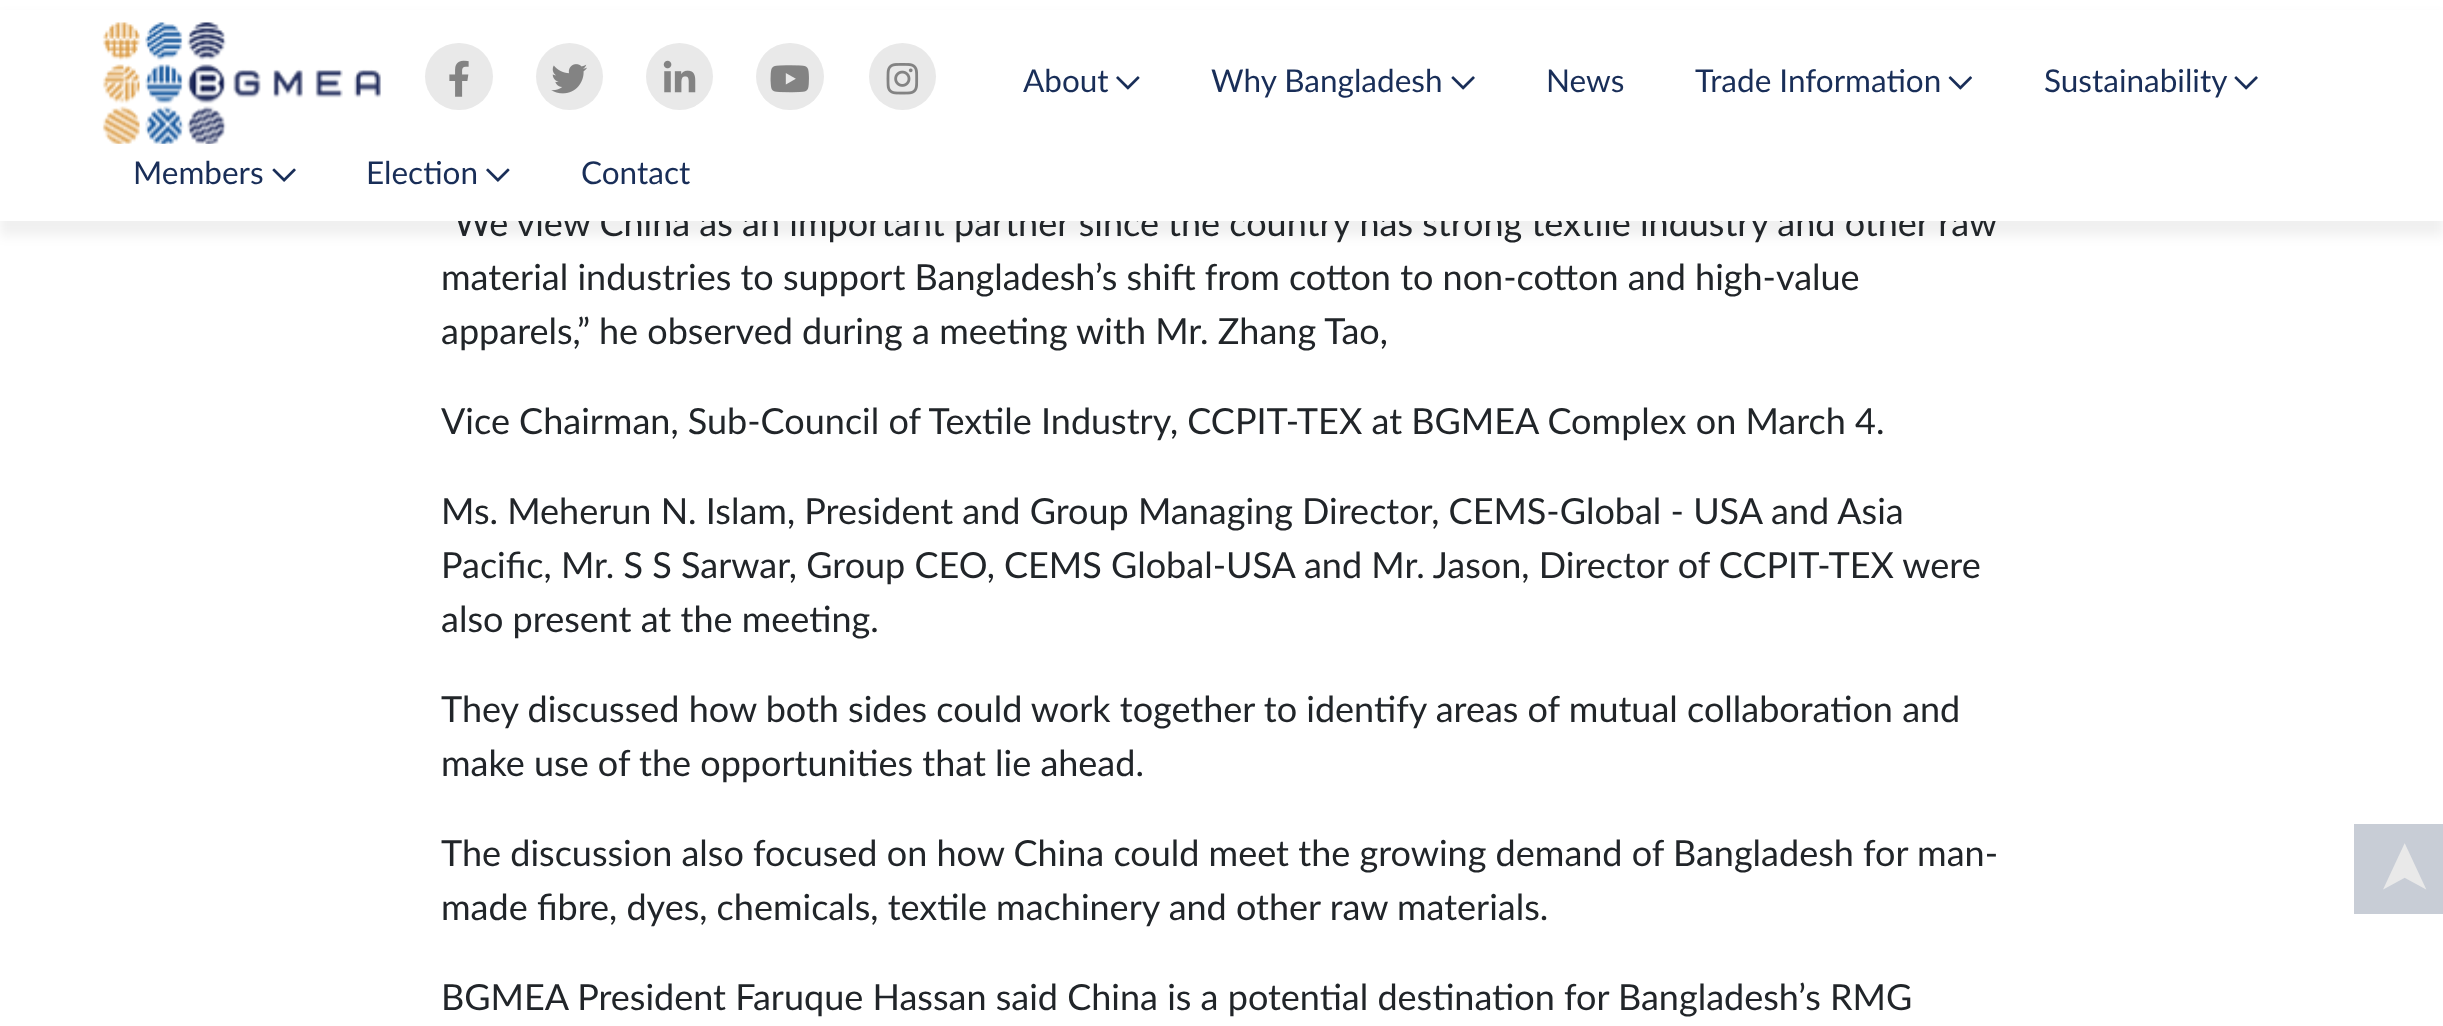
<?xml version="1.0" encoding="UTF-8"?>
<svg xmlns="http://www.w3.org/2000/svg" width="2443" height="1026">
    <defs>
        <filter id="blur1" x="-50%" y="-200%" width="200%" height="500%"><feGaussianBlur stdDeviation="6"/></filter>
    </defs>
    <rect width="100%" height="100%" fill="#FFFFFF"/>
    <rect x="0" y="16" width="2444" height="220" fill="#000000" fill-opacity="0.06" filter="url(#blur1)"/>
    <text x="454" y="236" font-family="Lato" font-size="36" fill="#212529">We view China as an important partner since the country has strong textile industry and other raw</text>
    <rect x="0" y="10" width="2443" height="211" fill="#FFFFFF"/>
    <image x="102" y="22" width="279" height="122" href="img_01.png"/>
    <rect x="425" y="43" width="68" height="67" rx="33.5" fill="#E9E9E9"/>
    <image x="449" y="60" width="20" height="37" href="img_02.png"/>
    <circle cx="569.5" cy="76.5" r="33.5" fill="#E9E9E9"/>
    <image x="551" y="64" width="36" height="30" href="img_03.png"/>
    <circle cx="679.5" cy="76.5" r="33.5" fill="#E9E9E9"/>
    <image x="663" y="60" width="33" height="33" href="img_04.png"/>
    <rect x="756" y="43" width="68" height="67" rx="33.5" fill="#E9E9E9"/>
    <image x="770" y="65" width="39" height="28" href="img_05.png"/>
    <circle cx="902.5" cy="76.5" r="33.5" fill="#E9E9E9"/>
    <image x="886" y="63" width="33" height="32" href="img_06.png"/>
    <text x="1023" y="92" font-family="Lato" font-size="31.5" fill="#192E58">About</text>
    <image x="1116" y="76" width="24" height="14" href="img_07.png"/>
    <text x="1211" y="92" font-family="Lato" font-size="31.5" fill="#192E58">Why Bangladesh</text>
    <image x="1451" y="76" width="24" height="14" href="img_08.png"/>
    <text x="1546" y="92" font-family="Lato" font-size="31.5" fill="#192E58">News</text>
    <text x="1695" y="92" font-family="Lato" font-size="31.5" fill="#192E58">Trade Information</text>
    <image x="1948" y="76" width="24" height="14" href="img_09.png"/>
    <text x="2044" y="92" font-family="Lato" font-size="31.5" fill="#192E58">Sustainability</text>
    <image x="2234" y="76" width="24" height="14" href="img_08.png"/>
    <text x="133" y="184" font-family="Lato" font-size="31.5" fill="#192E58">Members</text>
    <image x="272" y="168" width="24" height="14" href="img_10.png"/>
    <text x="366" y="184" font-family="Lato" font-size="31.5" fill="#192E58">Election</text>
    <image x="486" y="168" width="24" height="14" href="img_11.png"/>
    <text x="581" y="184" font-family="Lato" font-size="31.5" fill="#192E58">Contact</text>
    <text font-family="Lato" font-size="36" fill="#212529">
        <tspan x="441" y="290">material industries to support Bangladesh’s shift from cotton to non-cotton and high-value</tspan>
        <tspan x="441" y="344">apparels,” he observed during a meeting with Mr. Zhang Tao,</tspan>
    </text>
    <text x="441" y="434" font-family="Lato" font-size="36" fill="#212529">Vice Chairman, Sub-Council of Textile Industry, CCPIT-TEX at BGMEA Complex on March 4.</text>
    <text font-family="Lato" font-size="36" fill="#212529">
        <tspan x="441" y="524">Ms. Meherun N. Islam, President and Group Managing Director, CEMS-Global - USA and Asia</tspan>
        <tspan x="441" y="578">Pacific, Mr. S S Sarwar, Group CEO, CEMS Global-USA and Mr. Jason, Director of CCPIT-TEX were</tspan>
        <tspan x="441" y="632">also present at the meeting.</tspan>
    </text>
    <text font-family="Lato" font-size="36" fill="#212529">
        <tspan x="441" y="722">They discussed how both sides could work together to identify areas of mutual collaboration and</tspan>
        <tspan x="441" y="776">make use of the opportunities that lie ahead.</tspan>
    </text>
    <text font-family="Lato" font-size="36" fill="#212529">
        <tspan x="441" y="866">The discussion also focused on how China could meet the growing demand of Bangladesh for man-</tspan>
        <tspan x="441" y="920">made fibre, dyes, chemicals, textile machinery and other raw materials.</tspan>
    </text>
    <text x="441" y="1010" font-family="Lato" font-size="36" fill="#212529">BGMEA President Faruque Hassan said China is a potential destination for Bangladesh’s RMG</text>
    <rect x="2354" y="824" width="89" height="90" fill="#C8CDD6"/>
    <text x="2426" y="897" transform="rotate(-90 2426 897)" font-family="DejaVu Sans" font-size="68" fill="#E9E9E9">➤</text>
</svg>
